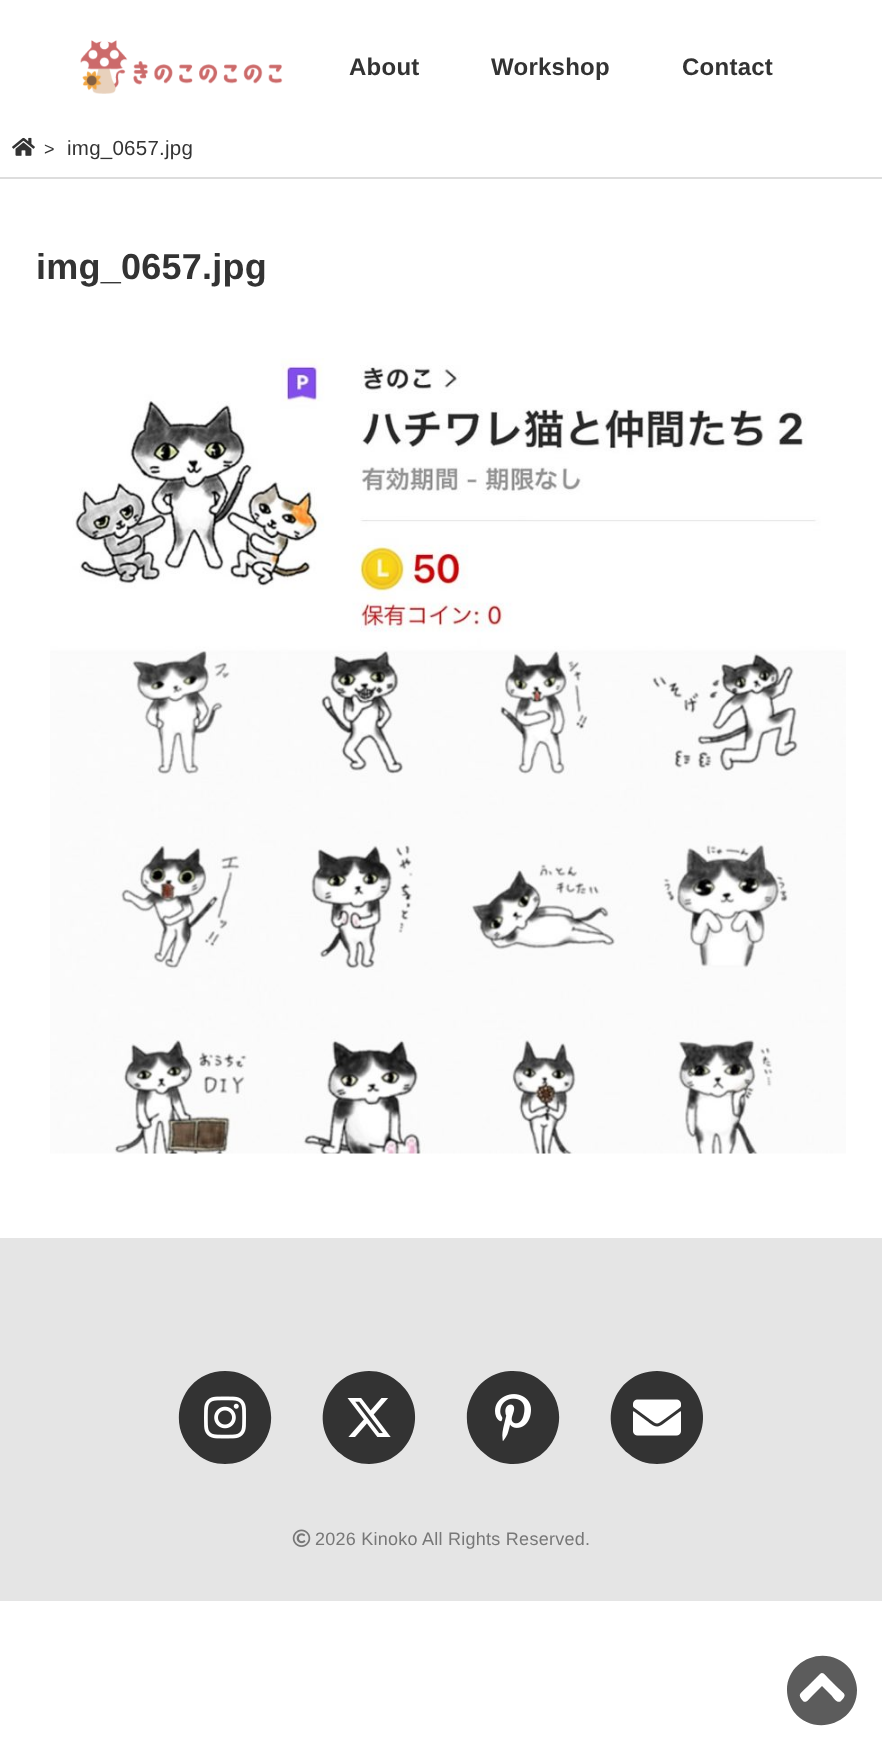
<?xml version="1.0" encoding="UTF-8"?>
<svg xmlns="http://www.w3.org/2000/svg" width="882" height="1751">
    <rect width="100%" height="100%" fill="#FFFFFF"/>
    <image x="80" y="40" width="203" height="54" href="img_01.png"/>
    <text x="349" y="75" font-family="Liberation Sans" font-size="24" font-weight="700" letter-spacing="0.25" fill="#333333">About</text>
    <text x="491" y="75" font-family="Liberation Sans" font-size="24" font-weight="700" letter-spacing="0.25" fill="#333333">Workshop</text>
    <text x="682" y="75" font-family="Liberation Sans" font-size="24" font-weight="700" letter-spacing="0.25" fill="#333333">Contact</text>
    <rect x="0" y="177" width="882" height="2" fill="#DDDDDD"/>
    <image x="12" y="137" width="23" height="19" href="img_02.png"/>
    <text x="44" y="155" font-family="Liberation Sans" font-size="18" letter-spacing="4" fill="#333333">&gt;</text>
    <text x="67" y="155" font-family="Liberation Sans" font-size="20.5" letter-spacing="0.25" fill="#333333">img_0657.jpg</text>
    <text x="36" y="279" font-family="Liberation Sans" font-size="36" font-weight="700" letter-spacing="0.25" fill="#333333">img_0657.jpg</text>
    <image x="50" y="358" width="796" height="796" href="img_03.png"/>
    <rect x="0" y="1238" width="882" height="363" fill="#E5E5E5"/>
    <path d="M 225 1371 C 181 1371 162 1427 197 1454 C 205 1461 215 1464 225 1464 C 235 1464 245 1461 253 1454 C 288 1427 269 1371 225 1371 Z" fill="#333333"/>
    <image x="204" y="1396" width="42" height="43" href="img_04.png"/>
    <path d="M 369 1371 C 325 1371 306 1427 341 1454 C 349 1461 359 1464 369 1464 C 413 1464 432 1408 397 1381 C 389 1374 379 1371 369 1371 Z" fill="#333333"/>
    <image x="347" y="1398" width="44" height="39" href="img_05.png"/>
    <path d="M 513 1371 C 469 1371 450 1427 485 1454 C 493 1461 503 1464 513 1464 C 557 1464 576 1408 541 1381 C 533 1374 523 1371 513 1371 Z" fill="#333333"/>
    <image x="495" y="1394" width="36" height="47" href="img_06.png"/>
    <path d="M 657 1371 C 613 1371 594 1427 629 1454 C 637 1461 647 1464 657 1464 C 667 1464 677 1461 685 1454 C 720 1427 701 1371 657 1371 Z" fill="#333333"/>
    <image x="633" y="1399" width="48" height="37" href="img_07.png"/>
    <image x="292" y="1529" width="19" height="18" href="img_08.png"/>
    <text x="315" y="1545" font-family="Liberation Sans" font-size="18" letter-spacing="0.25" fill="#777777">2026 Kinoko All Rights Reserved.</text>
    <path d="M 787 1690 C 787 1658 829 1643 850 1669 C 854 1675 857 1683 857 1690 C 857 1723 815 1738 794 1712 C 790 1706 787 1698 787 1690 Z M 820 1674 L 807 1687 C 800 1694 797 1694 803 1701 C 806 1704 810 1698 812 1696 L 822 1686 L 832 1696 C 833 1698 838 1704 841 1701 C 848 1694 844 1694 837 1687 L 828 1678 C 826 1676 823 1671 820 1674 Z" fill="#5C5C5C"/>
</svg>
